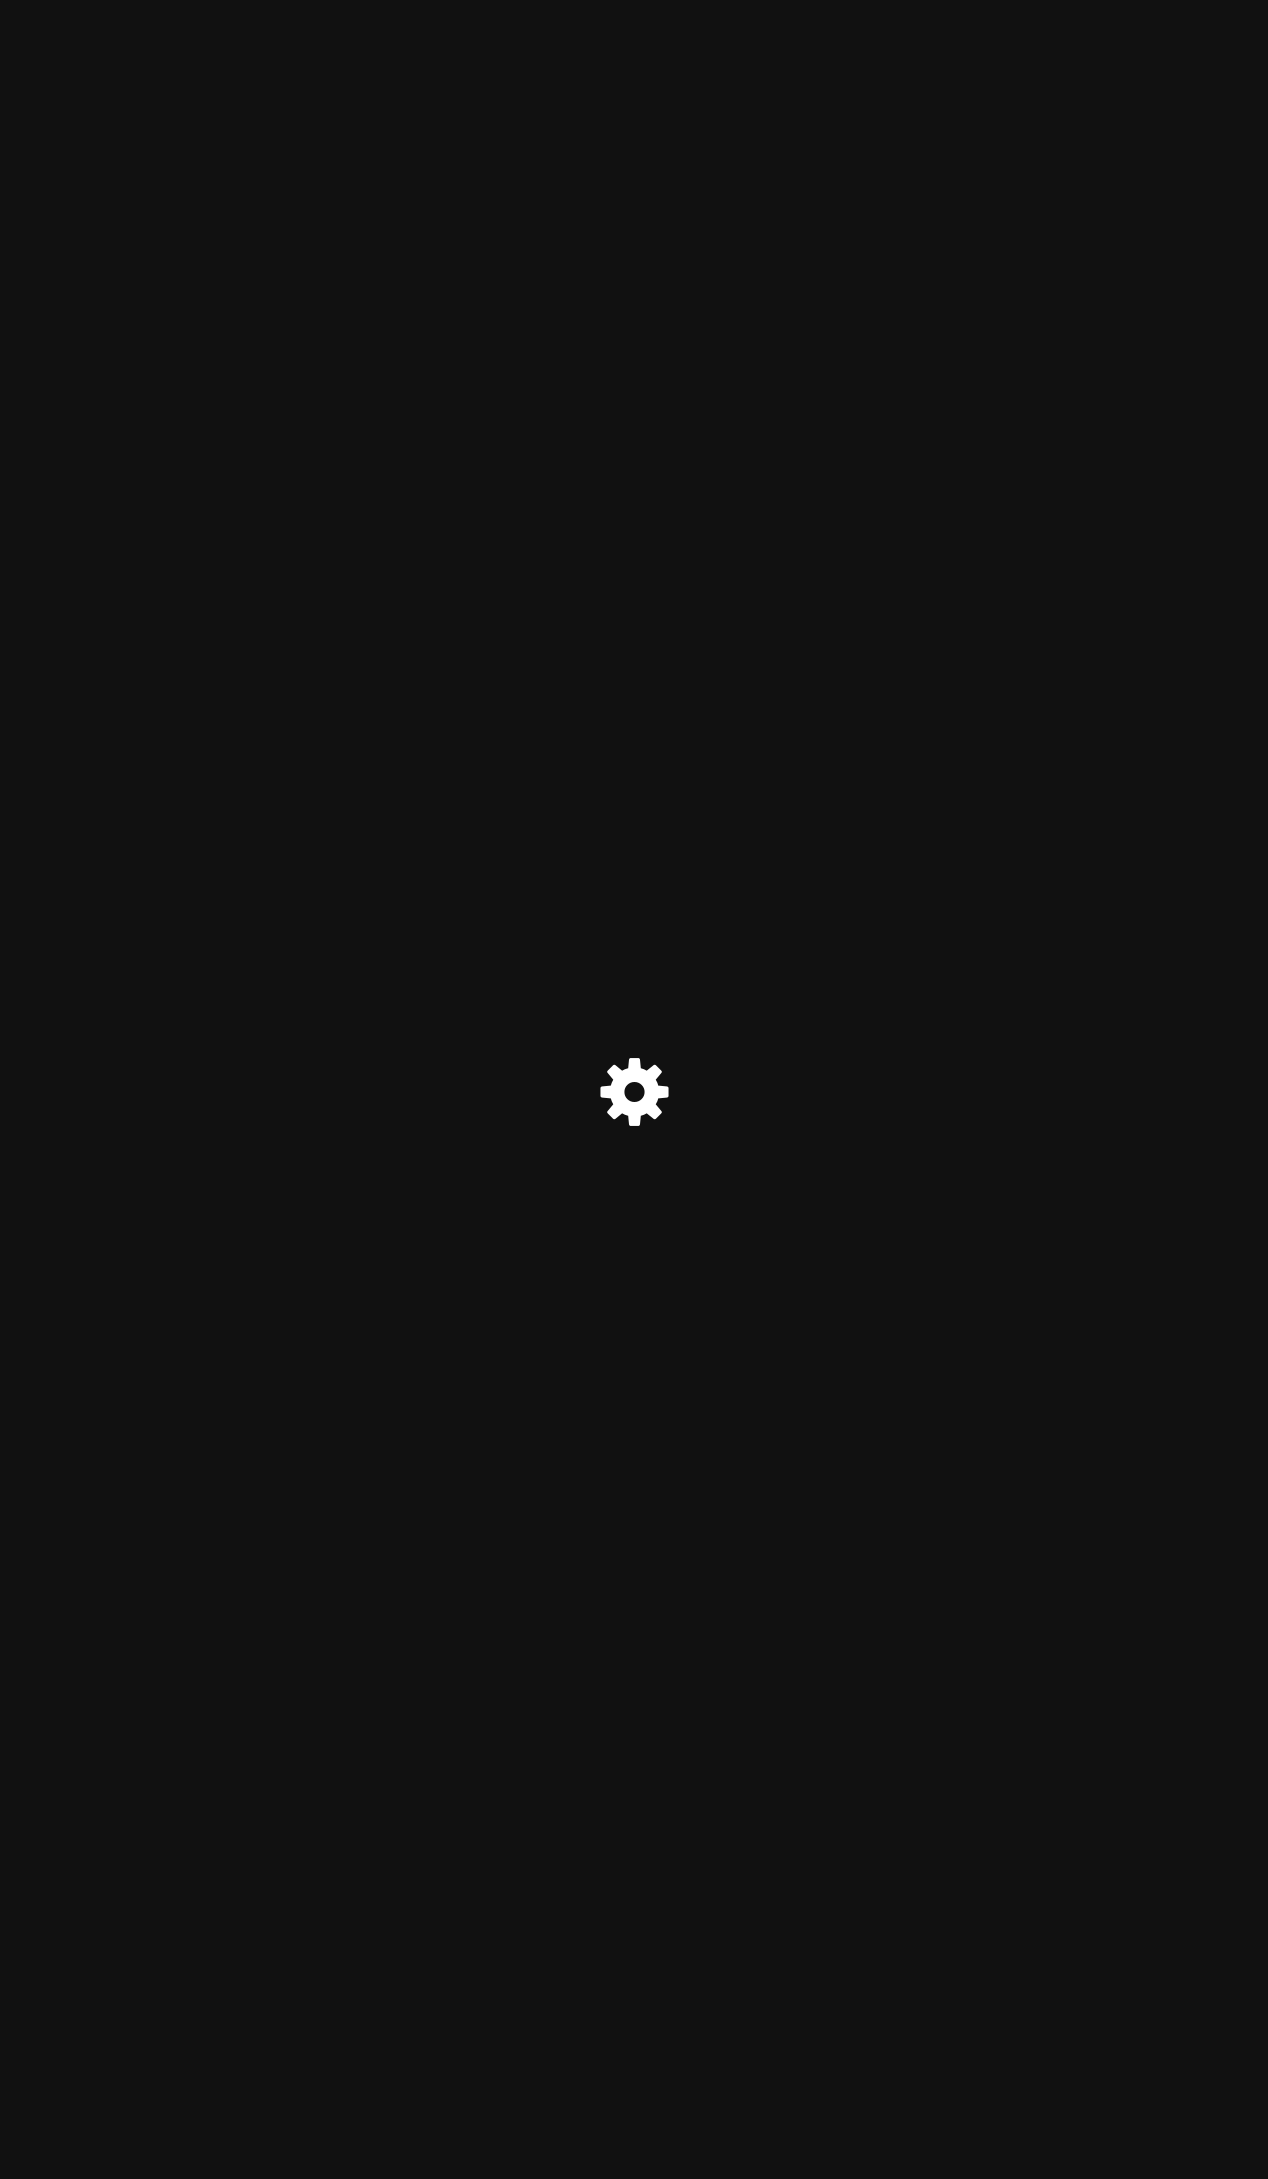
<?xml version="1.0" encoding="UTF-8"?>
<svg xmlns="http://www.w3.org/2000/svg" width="1268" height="2179">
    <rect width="100%" height="100%" fill="#111111"/>
    <image x="600" y="1058" width="69" height="68" href="img_01.png"/>
</svg>
